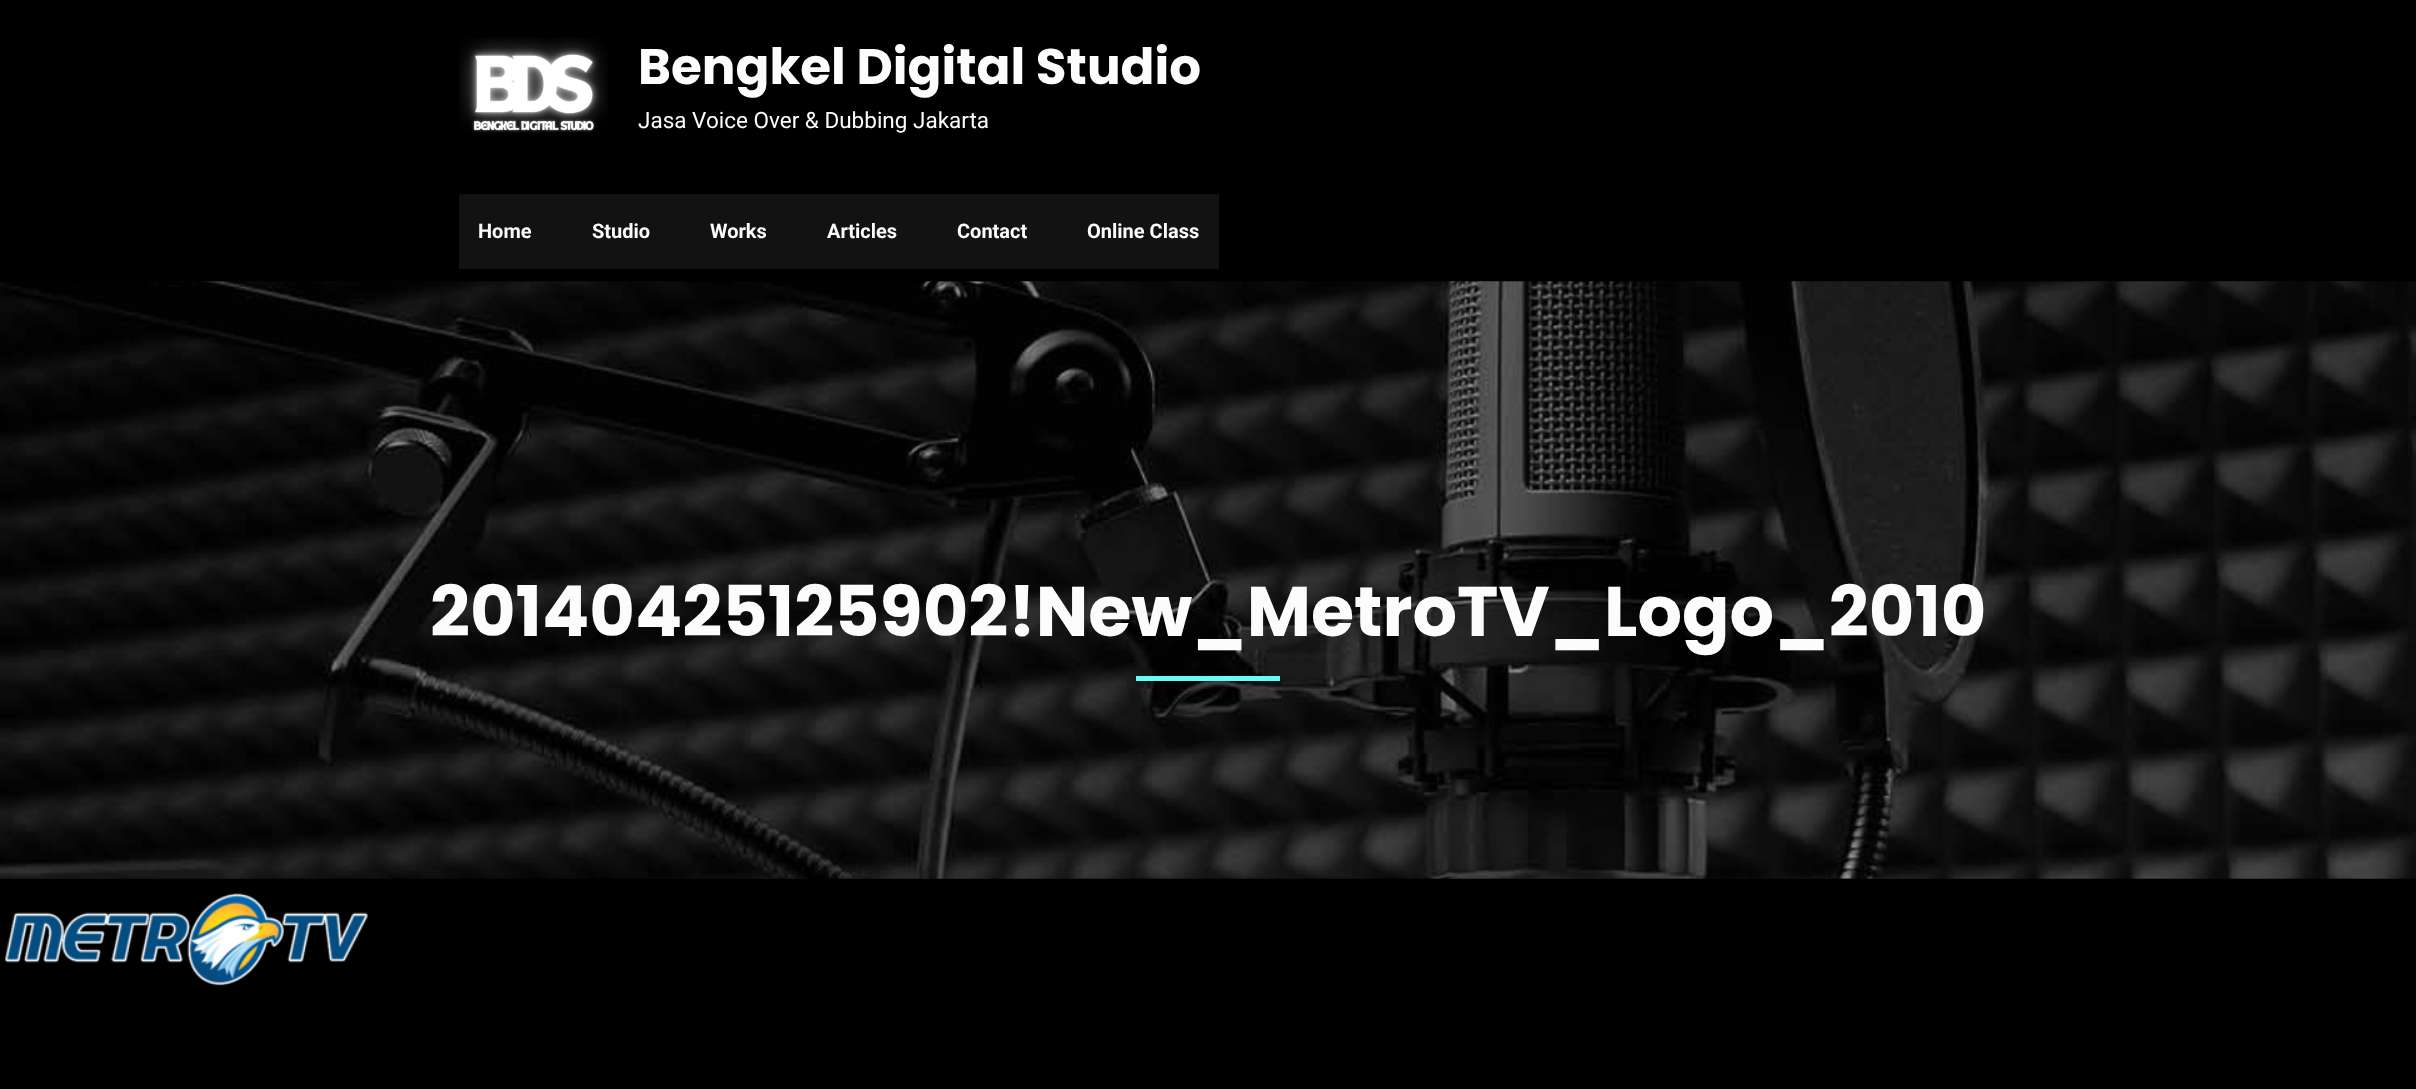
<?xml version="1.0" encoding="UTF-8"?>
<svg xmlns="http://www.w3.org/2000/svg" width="2416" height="1089">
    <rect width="100%" height="100%" fill="#000000"/>
    <image x="459" y="37" width="149" height="96" href="img_01.png"/>
    <text x="638" y="84" font-family="Poppins" font-size="50" font-weight="700" fill="#FCFCFC">Bengkel Digital Studio</text>
    <text x="638" y="128" font-family="Roboto" font-size="22.5" fill="#FCFCFC">Jasa Voice Over &amp; Dubbing Jakarta</text>
    <rect x="459" y="194" width="760" height="75" fill="#121212"/>
    <text x="478" y="238" font-family="Roboto" font-size="20" font-weight="700" fill="#FCFCFC">Home</text>
    <text x="592" y="238" font-family="Roboto" font-size="20" font-weight="700" fill="#FCFCFC">Studio</text>
    <text x="710" y="238" font-family="Roboto" font-size="20" font-weight="700" fill="#FCFCFC">Works</text>
    <text x="827" y="238" font-family="Roboto" font-size="20" font-weight="700" fill="#FCFCFC">Articles</text>
    <text x="957" y="238" font-family="Roboto" font-size="20" font-weight="700" fill="#FCFCFC">Contact</text>
    <text x="1087" y="238" font-family="Roboto" font-size="20" font-weight="700" fill="#FCFCFC">Online Class</text>
    <image x="0" y="281" width="2416" height="598" href="img_02.png"/>
    <text x="430" y="636" font-family="Poppins" font-size="70" font-weight="700" fill="#FCFCFC">20140425125902!New_MetroTV_Logo_2010</text>
    <rect x="1136" y="676" width="144" height="5" fill="#66FCF1"/>
    <image x="4" y="893" width="365" height="93" href="img_03.png"/>
</svg>
